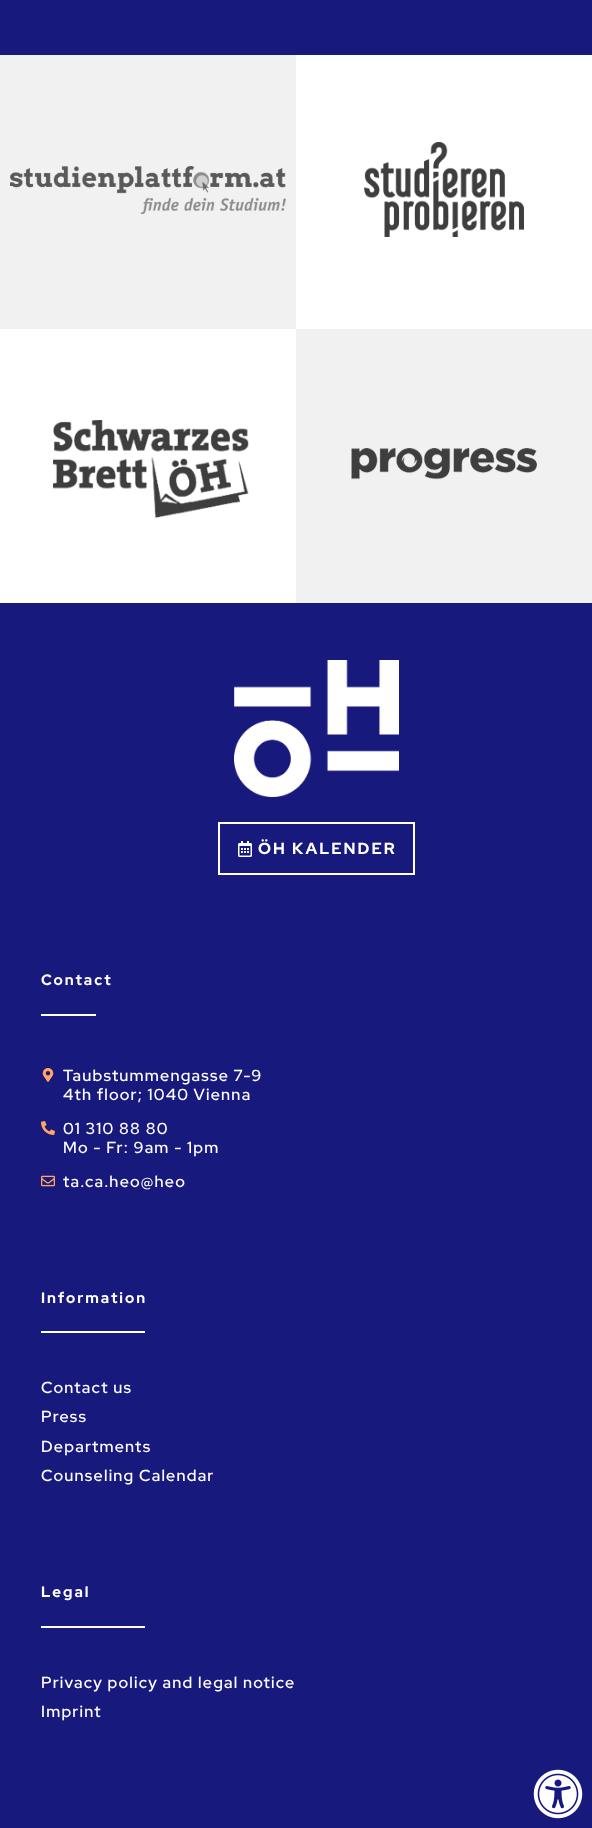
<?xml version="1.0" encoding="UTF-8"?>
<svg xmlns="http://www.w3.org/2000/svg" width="592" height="1828">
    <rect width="100%" height="100%" fill="#FFFFFF"/>
    <rect x="0" y="0" width="592" height="55" fill="#18197C"/>
    <rect x="0" y="55" width="296" height="274" fill="#F1F1F1"/>
    <image x="10" y="166" width="276" height="48" href="img_01.png"/>
    <image x="364" y="142" width="160" height="95" href="img_02.png"/>
    <image x="53" y="420" width="196" height="98" href="img_03.png"/>
    <rect x="296" y="329" width="296" height="274" fill="#F1F1F1"/>
    <image x="351" y="448" width="186" height="32" href="img_04.png"/>
    <rect x="0" y="603" width="592" height="1225" fill="#18197C"/>
    <image x="234" y="660" width="165" height="137" href="img_05.png"/>
    <rect x="219" y="823" width="195" height="51" fill="none" stroke="#FFFFFF" stroke-width="2"/>
    <image x="238" y="841" width="14" height="16" href="img_06.png"/>
    <text x="258" y="854" font-family="Red Hat Display" font-size="16" font-weight="700" letter-spacing="2" fill="#FFFFFF">ÖH KALENDER</text>
    <text x="41" y="985" font-family="Red Hat Display" font-size="15" font-weight="700" letter-spacing="2" fill="#FFFFFF">Contact</text>
    <rect x="41" y="1014" width="55" height="2" fill="#FFFFFF"/>
    <image x="42" y="1068" width="12" height="14" href="img_07.png"/>
    <text font-family="Red Hat Display" font-size="16" font-weight="500" letter-spacing="1.2" fill="#FFFFFF">
        <tspan x="63" y="1081">Taubstummengasse 7-9</tspan>
        <tspan x="63" y="1100">4th floor; 1040 Vienna</tspan>
    </text>
    <image x="41" y="1121" width="14" height="14" href="img_08.png"/>
    <text font-family="Red Hat Display" font-size="16" font-weight="500" letter-spacing="1.2" fill="#FFFFFF">
        <tspan x="63" y="1134">01 310 88 80</tspan>
        <tspan x="63" y="1153">Mo - Fr: 9am - 1pm</tspan>
    </text>
    <image x="41" y="1175" width="14" height="12" href="img_09.png"/>
    <text x="63" y="1187" font-family="Red Hat Display" font-size="16" font-weight="500" letter-spacing="1.2" fill="#FFFFFF">ta.ca.heo@heo</text>
    <text x="41" y="1303" font-family="Red Hat Display" font-size="15" font-weight="700" letter-spacing="2" fill="#FFFFFF">Information</text>
    <rect x="41" y="1331" width="104" height="2" fill="#FFFFFF"/>
    <text font-family="Red Hat Display" font-size="16" font-weight="500" letter-spacing="1.2" fill="#FFFFFF">
        <tspan x="41" y="1393">Contact us</tspan>
        <tspan x="41" y="1422">Press</tspan>
        <tspan x="41" y="1452">Departments</tspan>
        <tspan x="41" y="1481">Counseling Calendar</tspan>
    </text>
    <text x="41" y="1597" font-family="Red Hat Display" font-size="15" font-weight="700" letter-spacing="2" fill="#FFFFFF">Legal</text>
    <rect x="41" y="1626" width="104" height="2" fill="#FFFFFF"/>
    <text font-family="Red Hat Display" font-size="16" font-weight="500" letter-spacing="1.2" fill="#FFFFFF">
        <tspan x="41" y="1688">Privacy policy and legal notice</tspan>
        <tspan x="41" y="1717">Imprint</tspan>
    </text>
    <image x="533" y="1769" width="50" height="50" href="img_10.png"/>
</svg>
